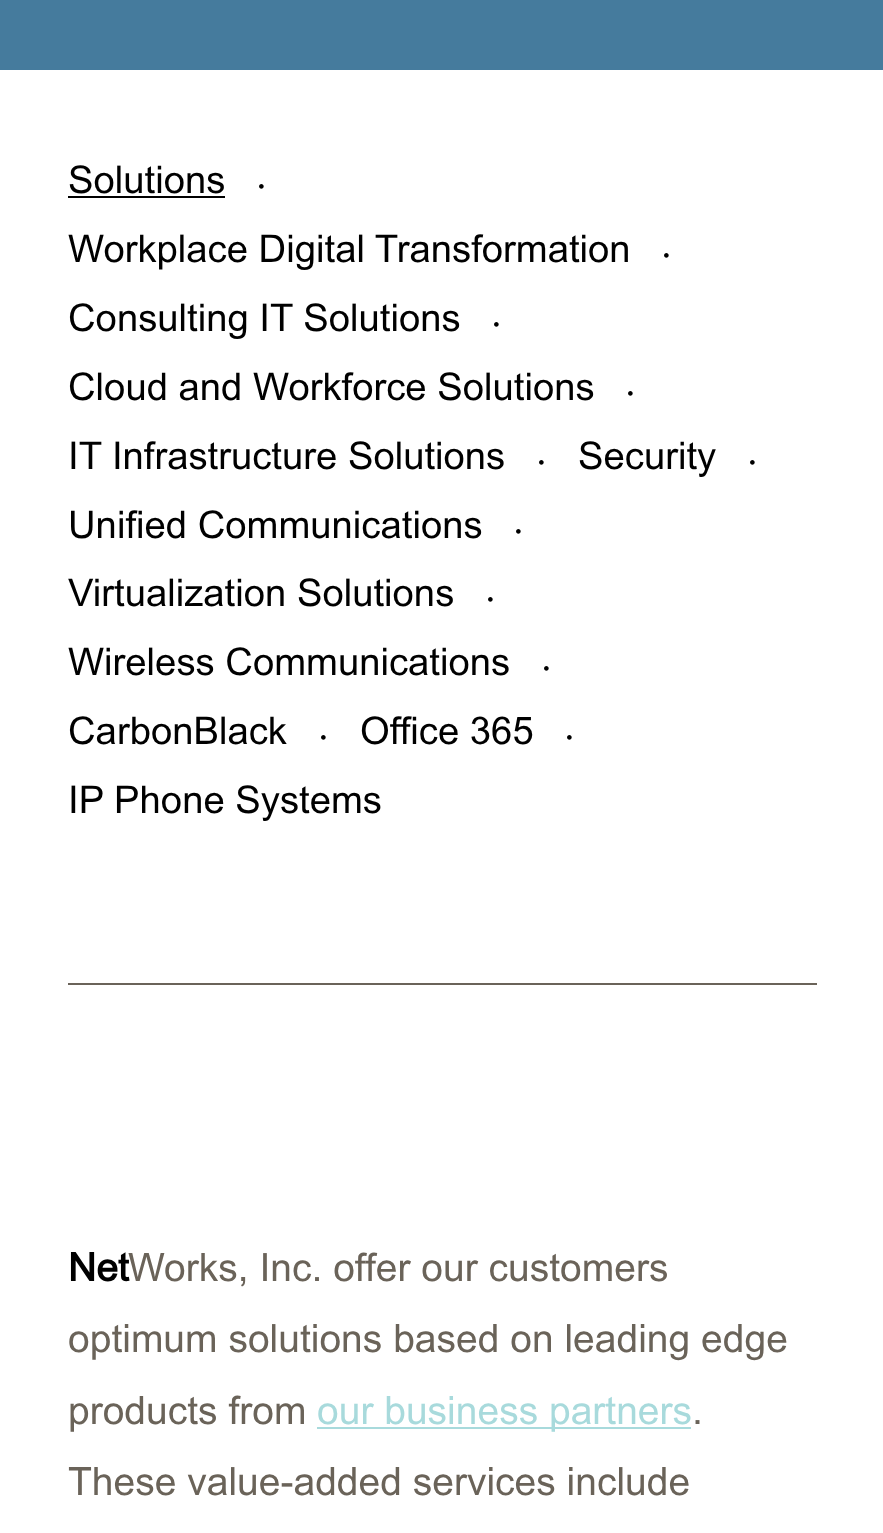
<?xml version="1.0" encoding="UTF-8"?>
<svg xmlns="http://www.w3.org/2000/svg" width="883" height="1533">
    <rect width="100%" height="100%" fill="#FFFFFF"/>
    <rect x="0" y="0" width="883" height="70" fill="#457B9D"/>
    <text x="68" y="193" font-family="Arial" font-size="38.25" fill="#000000">Solutions</text>
    <rect x="68" y="196" width="157" height="2" fill="#000000"/>
    <text x="258" y="193" font-family="Arial" font-size="19" fill="#000000">•</text>
    <text x="68" y="262" font-family="Arial" font-size="38.25" fill="#000000">Workplace Digital Transformation</text>
    <text x="663" y="262" font-family="Arial" font-size="19" fill="#000000">•</text>
    <text x="68" y="331" font-family="Arial" font-size="38.25" fill="#000000">Consulting IT Solutions</text>
    <text x="493" y="331" font-family="Arial" font-size="19" fill="#000000">•</text>
    <text x="68" y="400" font-family="Arial" font-size="38.25" fill="#000000">Cloud and Workforce Solutions</text>
    <text x="627" y="400" font-family="Arial" font-size="19" fill="#000000">•</text>
    <text x="68" y="469" font-family="Arial" font-size="38.25" fill="#000000">IT Infrastructure Solutions</text>
    <text x="538" y="469" font-family="Arial" font-size="19" fill="#000000">•</text>
    <text x="578" y="469" font-family="Arial" font-size="38.25" fill="#000000">Security</text>
    <text x="749" y="469" font-family="Arial" font-size="19" fill="#000000">•</text>
    <text x="68" y="538" font-family="Arial" font-size="38.25" fill="#000000">Unified Communications</text>
    <text x="515" y="538" font-family="Arial" font-size="19" fill="#000000">•</text>
    <text x="68" y="606" font-family="Arial" font-size="38.25" fill="#000000">Virtualization Solutions</text>
    <text x="487" y="606" font-family="Arial" font-size="19" fill="#000000">•</text>
    <text x="68" y="675" font-family="Arial" font-size="38.25" fill="#000000">Wireless Communications</text>
    <text x="543" y="675" font-family="Arial" font-size="19" fill="#000000">•</text>
    <text x="68" y="744" font-family="Arial" font-size="38.25" fill="#000000">CarbonBlack</text>
    <text x="320" y="744" font-family="Arial" font-size="19" fill="#000000">•</text>
    <text x="360" y="744" font-family="Arial" font-size="38.25" fill="#000000">Office 365</text>
    <text x="566" y="744" font-family="Arial" font-size="19" fill="#000000">•</text>
    <text x="68" y="813" font-family="Arial" font-size="38.25" fill="#000000">IP Phone Systems</text>
    <rect x="68" y="983" width="749" height="2" fill="#6A6359"/>
    <text x="68" y="1281" font-family="Arial" font-size="39" font-weight="700" fill="#000000">Net</text>
    <text x="128" y="1281" font-family="Arial" font-size="39" fill="#6A6359">Works, Inc. offer our customers</text>
    <text font-family="Arial" font-size="39" fill="#6A6359">
        <tspan x="68" y="1352">optimum solutions based on leading edge</tspan>
        <tspan x="68" y="1424">products from</tspan>
    </text>
    <rect x="317" y="1427" width="374" height="2" fill="#A8DADC"/>
    <text x="317" y="1424" font-family="Arial" font-size="39" fill="#A8DADC">our business partners</text>
    <text x="692" y="1424" font-family="Arial" font-size="39" fill="#6A6359">.</text>
    <text x="68" y="1495" font-family="Arial" font-size="39" fill="#6A6359">These value-added services include</text>
</svg>
